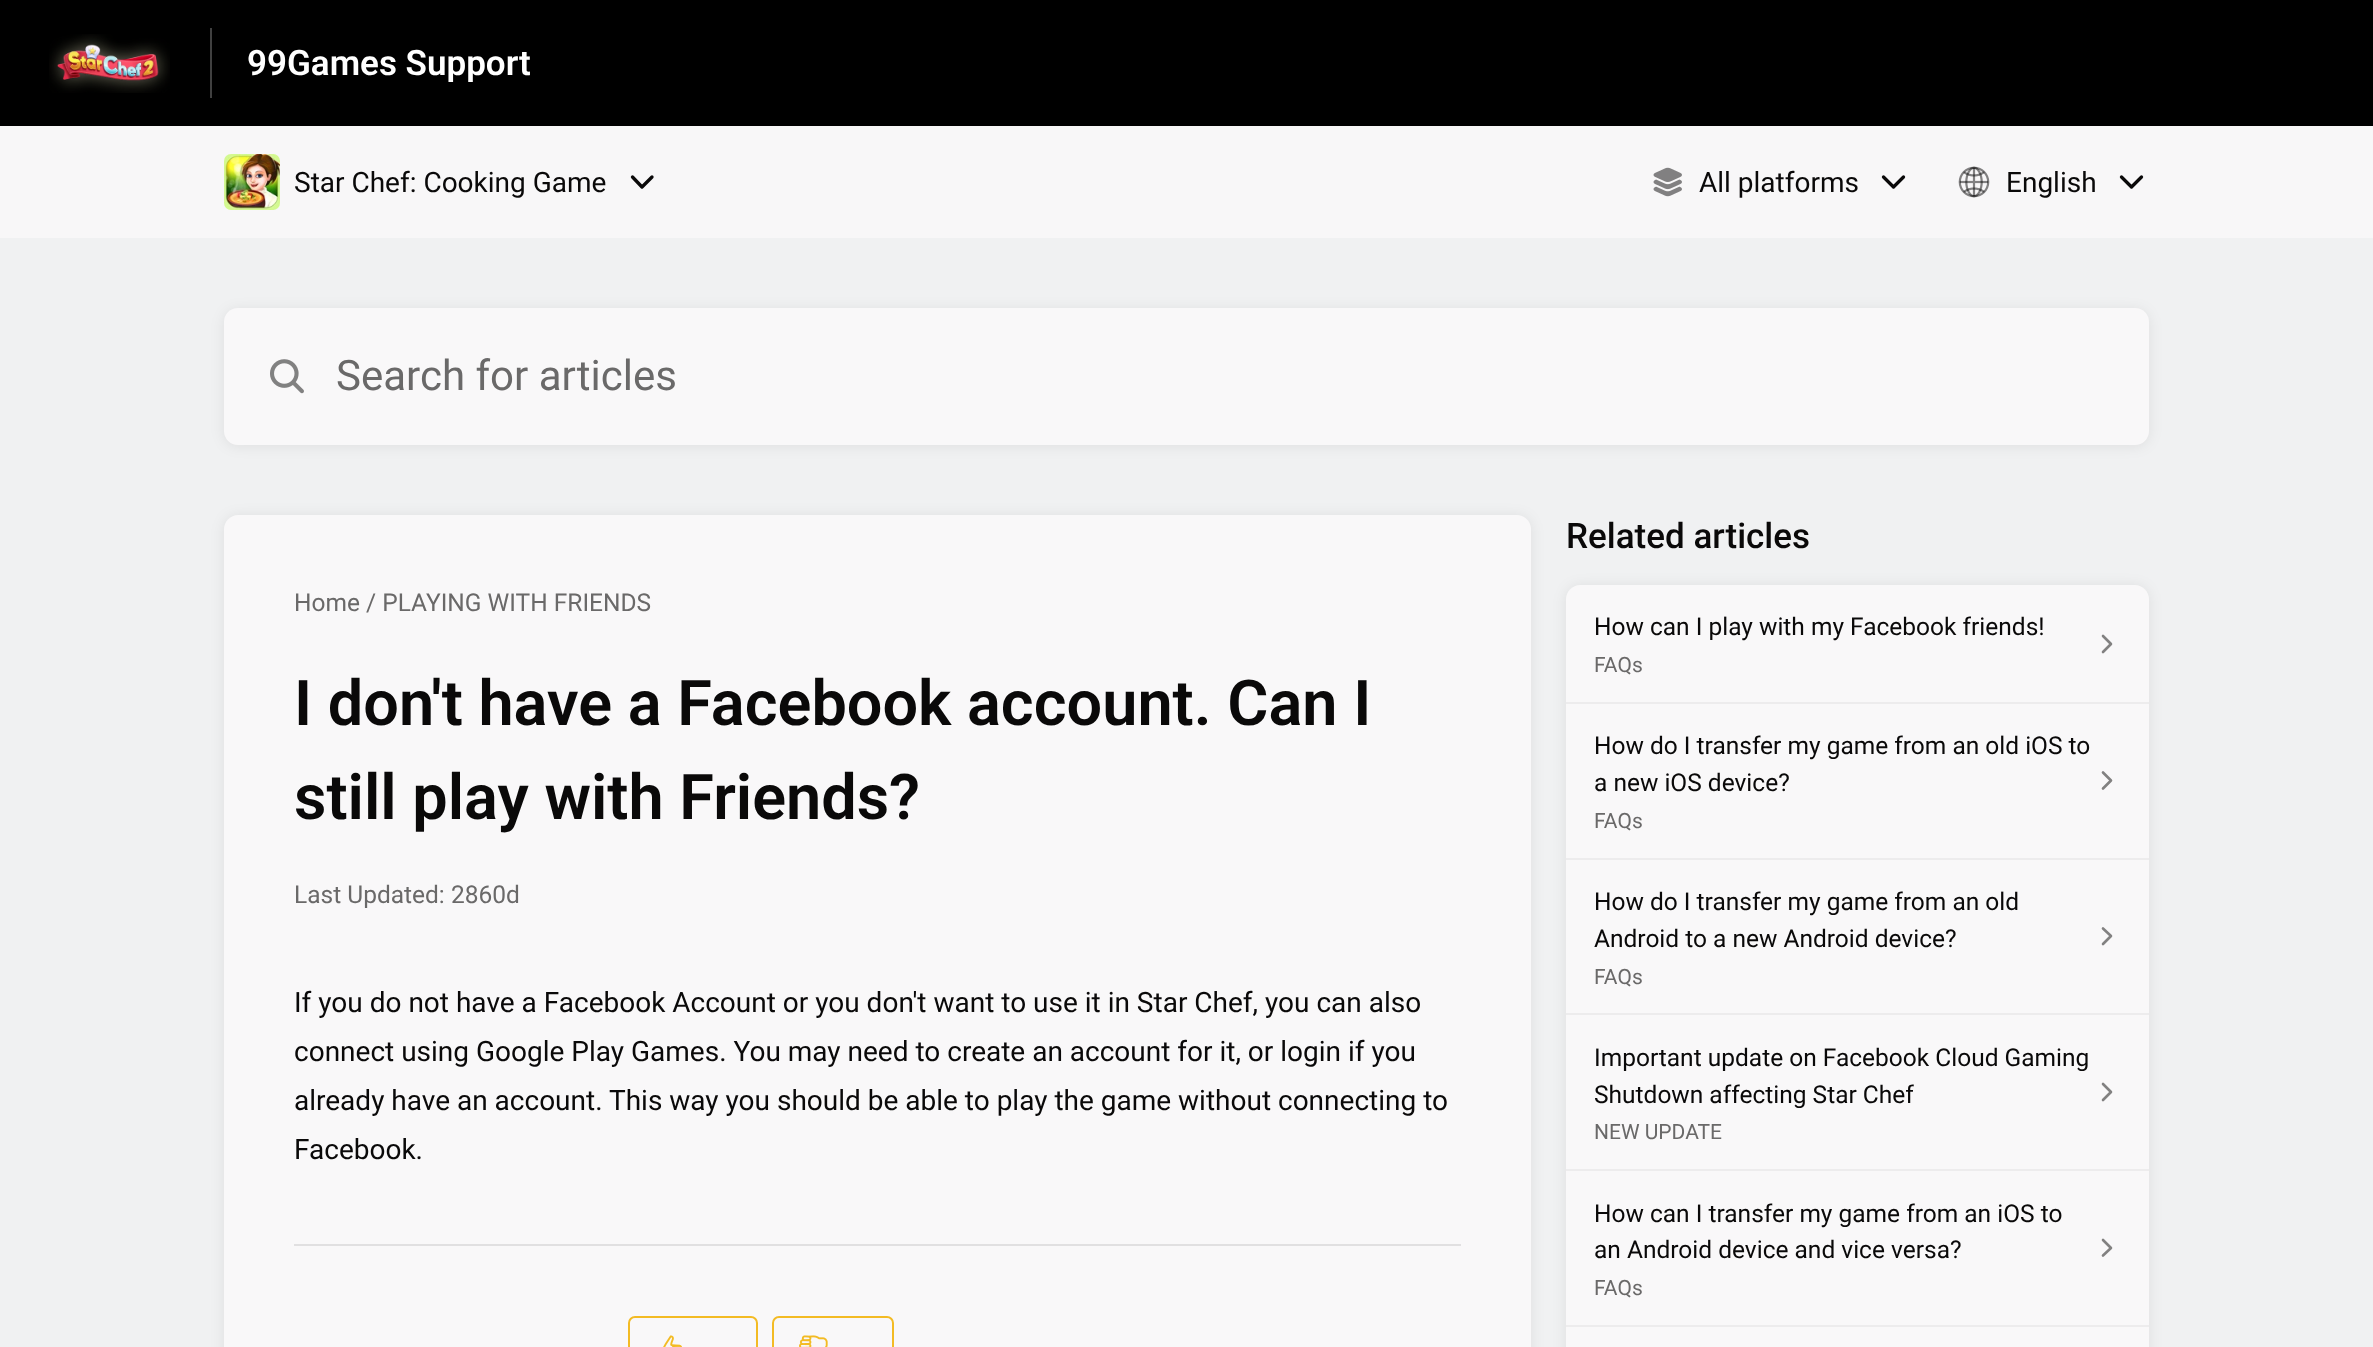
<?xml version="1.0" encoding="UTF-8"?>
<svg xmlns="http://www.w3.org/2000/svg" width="2373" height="1347">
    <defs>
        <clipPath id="clip1"><rect x="247" y="42" width="283" height="42"/></clipPath>
        <filter id="blur1" x="-50%" y="-200%" width="200%" height="500%"><feGaussianBlur stdDeviation="7"/></filter>
    </defs>
    <rect width="100%" height="100%" fill="#F8F7F8"/>
    <rect x="0" y="0" width="2373" height="126" fill="#000000"/>
    <rect x="210" y="28" width="2" height="70" fill="#404040"/>
    <image x="49" y="34" width="121" height="59" href="img_01.png"/>
    <g clip-path="url(#clip1)">
        <text x="247" y="75" font-family="Roboto" font-size="35" font-weight="600" fill="#FFFFFF">99Games Support</text>
    </g>
    <image x="224" y="154" width="56" height="56" href="img_02.png"/>
    <text x="294" y="192" font-family="Roboto" font-size="28" fill="#0A0909">Star Chef: Cooking Game</text>
    <path d="M 632.5 177 L 642 187 L 652 177" fill="none" stroke="#0A0909" stroke-width="3.3" stroke-linecap="round" stroke-linejoin="round"/>
    <image x="1653" y="167" width="29" height="30" href="img_03.png"/>
    <text x="1699" y="192" font-family="Roboto" font-size="28" fill="#0A0909">All platforms</text>
    <path d="M 1883.5 177 L 1893.5 187 L 1903.5 177" fill="none" stroke="#0A0909" stroke-width="3.3" stroke-linecap="round" stroke-linejoin="round"/>
    <image x="1958" y="166" width="32" height="32" href="img_04.png"/>
    <text x="2006" y="192" font-family="Roboto" font-size="28" fill="#0A0909">English</text>
    <path d="M 2121.5 177 L 2131.5 187 L 2141.5 177" fill="none" stroke="#0A0909" stroke-width="3.3" stroke-linecap="round" stroke-linejoin="round"/>
    <rect x="0" y="238" width="2373" height="1109" fill="#F0F1F2"/>
    <rect x="224" y="310" width="1925" height="136" rx="14" fill="#000000" fill-opacity="0.08" filter="url(#blur1)"/>
    <rect x="224" y="308" width="1925" height="137" rx="14" fill="#F9F8F9"/>
    <image x="270" y="359" width="34" height="35" href="img_05.png"/>
    <text x="336" y="390" font-family="Roboto" font-size="42" fill="#6A6969">Search for articles</text>
    <rect x="224" y="516" width="1307" height="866" rx="14" fill="#000000" fill-opacity="0.08" filter="url(#blur1)"/>
    <path d="M 238 515 H 1517 C 1524.5 515 1531 521.5 1531 529 V 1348 H 224 V 529 C 224 521.5 230.5 515 238 515 Z" fill="#F9F8F9"/>
    <text x="294" y="611" font-family="Roboto" font-size="24.5" fill="#6A6969">Home / PLAYING WITH FRIENDS</text>
    <text font-family="Roboto" font-size="63" font-weight="600" fill="#0A0909">
        <tspan x="294" y="725">I don't have a Facebook account. Can I</tspan>
        <tspan x="294" y="819">still play with Friends?</tspan>
    </text>
    <text x="294" y="903" font-family="Roboto" font-size="24.5" fill="#6A6969">Last Updated: 2860d</text>
    <rect x="294" y="1244" width="1167" height="2" fill="#E1E0E1"/>
    <text font-family="Roboto" font-size="28" fill="#0A0909">
        <tspan x="294" y="1012">If you do not have a Facebook Account or you don't want to use it in Star Chef, you can also</tspan>
        <tspan x="294" y="1061">connect using Google Play Games. You may need to create an account for it, or login if you</tspan>
        <tspan x="294" y="1110">already have an account. This way you should be able to play the game without connecting to</tspan>
        <tspan x="294" y="1159">Facebook.</tspan>
    </text>
    <rect x="629" y="1317" width="128" height="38" rx="6" fill="none" stroke="#F3BB24" stroke-width="2"/>
    <image x="663" y="1335" width="19" height="12" href="img_06.png"/>
    <rect x="773" y="1317" width="120" height="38" rx="6" fill="none" stroke="#F3BB24" stroke-width="2"/>
    <image x="799" y="1335" width="29" height="12" href="img_07.png"/>
    <text x="1566" y="548" font-family="Roboto" font-size="35" font-weight="500" fill="#0A0909">Related articles</text>
    <rect x="1566" y="586" width="583" height="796" rx="14" fill="#000000" fill-opacity="0.08" filter="url(#blur1)"/>
    <path d="M 1580 585 H 2135 C 2142.5 585 2149 591.5 2149 599 V 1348 H 1566 V 599 C 1566 591.5 1572.5 585 1580 585 Z" fill="#F9F8F9"/>
    <rect x="1566" y="702" width="583" height="2" fill="#EDECED"/>
    <text x="1594" y="635" font-family="Roboto" font-size="24.5" fill="#0A0909">How can I play with my Facebook friends!</text>
    <text x="1594" y="672" font-family="Roboto" font-size="21" fill="#6A6969">FAQs</text>
    <path d="M 2103 636 L 2111 644 L 2103 652" fill="none" stroke="#828181" stroke-width="2.6" stroke-linecap="round" stroke-linejoin="round"/>
    <rect x="1566" y="858" width="583" height="2" fill="#EDECED"/>
    <text font-family="Roboto" font-size="24.5" fill="#0A0909">
        <tspan x="1594" y="754">How do I transfer my game from an old iOS to</tspan>
        <tspan x="1594" y="791">a new iOS device?</tspan>
    </text>
    <text x="1594" y="828" font-family="Roboto" font-size="21" fill="#6A6969">FAQs</text>
    <path d="M 2103 772.5 L 2111 780.5 L 2103 788.5" fill="none" stroke="#828181" stroke-width="2.6" stroke-linecap="round" stroke-linejoin="round"/>
    <rect x="1566" y="1013" width="583" height="2" fill="#EDECED"/>
    <text font-family="Roboto" font-size="24.5" fill="#0A0909">
        <tspan x="1594" y="910">How do I transfer my game from an old</tspan>
        <tspan x="1594" y="947">Android to a new Android device?</tspan>
    </text>
    <text x="1594" y="984" font-family="Roboto" font-size="21" fill="#6A6969">FAQs</text>
    <path d="M 2103 928.5 L 2111 936 L 2103 944" fill="none" stroke="#828181" stroke-width="2.6" stroke-linecap="round" stroke-linejoin="round"/>
    <rect x="1566" y="1169" width="583" height="2" fill="#EDECED"/>
    <text font-family="Roboto" font-size="24.5" fill="#0A0909">
        <tspan x="1594" y="1066">Important update on Facebook Cloud Gaming</tspan>
        <tspan x="1594" y="1103">Shutdown affecting Star Chef</tspan>
    </text>
    <text x="1594" y="1139" font-family="Roboto" font-size="21" fill="#6A6969">NEW UPDATE</text>
    <path d="M 2103 1084 L 2111 1092 L 2103 1100" fill="none" stroke="#828181" stroke-width="2.6" stroke-linecap="round" stroke-linejoin="round"/>
    <rect x="1566" y="1325" width="583" height="2" fill="#EDECED"/>
    <text font-family="Roboto" font-size="24.5" fill="#0A0909">
        <tspan x="1594" y="1222">How can I transfer my game from an iOS to</tspan>
        <tspan x="1594" y="1258">an Android device and vice versa?</tspan>
    </text>
    <text x="1594" y="1295" font-family="Roboto" font-size="21" fill="#6A6969">FAQs</text>
    <path d="M 2103 1240 L 2111 1248 L 2103 1255.5" fill="none" stroke="#828181" stroke-width="2.6" stroke-linecap="round" stroke-linejoin="round"/>
</svg>
